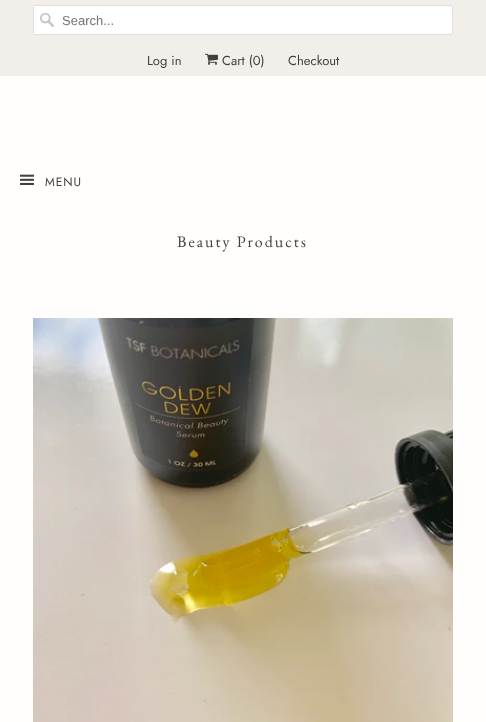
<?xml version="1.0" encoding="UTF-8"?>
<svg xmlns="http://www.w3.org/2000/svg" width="486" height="722">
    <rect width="100%" height="100%" fill="#FFFEFC"/>
    <rect x="0" y="0" width="486" height="76" fill="#F2EFEA"/>
    <rect x="33" y="5" width="420" height="30" rx="2" fill="#FFFFFF"/>
    <image x="40" y="13" width="14" height="14" href="img_01.png"/>
    <rect x="33.5" y="5.5" width="419" height="29" rx="1.5" fill="none" stroke="#DFDFDF"/>
    <text x="62" y="25" font-family="Liberation Sans" font-size="13" fill="#757575">Search...</text>
    <text x="147" y="65" font-family="Jost" font-size="13" fill="#404040">Log in</text>
    <image x="205" y="53" width="13" height="12" href="img_02.png"/>
    <text x="222" y="65" font-family="Jost" font-size="13" fill="#404040">Cart (0)</text>
    <text x="288" y="65" font-family="Jost" font-size="13" fill="#404040">Checkout</text>
    <image x="20" y="174" width="14" height="11" href="img_03.png"/>
    <text x="45" y="186" font-family="Jost" font-size="12" letter-spacing="1" fill="#404040">MENU</text>
    <rect x="33" y="275" width="420" height="1" fill="#FFFFFF"/>
    <text x="177" y="247" font-family="EB Garamond" font-size="16" letter-spacing="2" fill="#404040">Beauty Products</text>
    <image x="33" y="318" width="420" height="404" href="img_04.png"/>
</svg>
